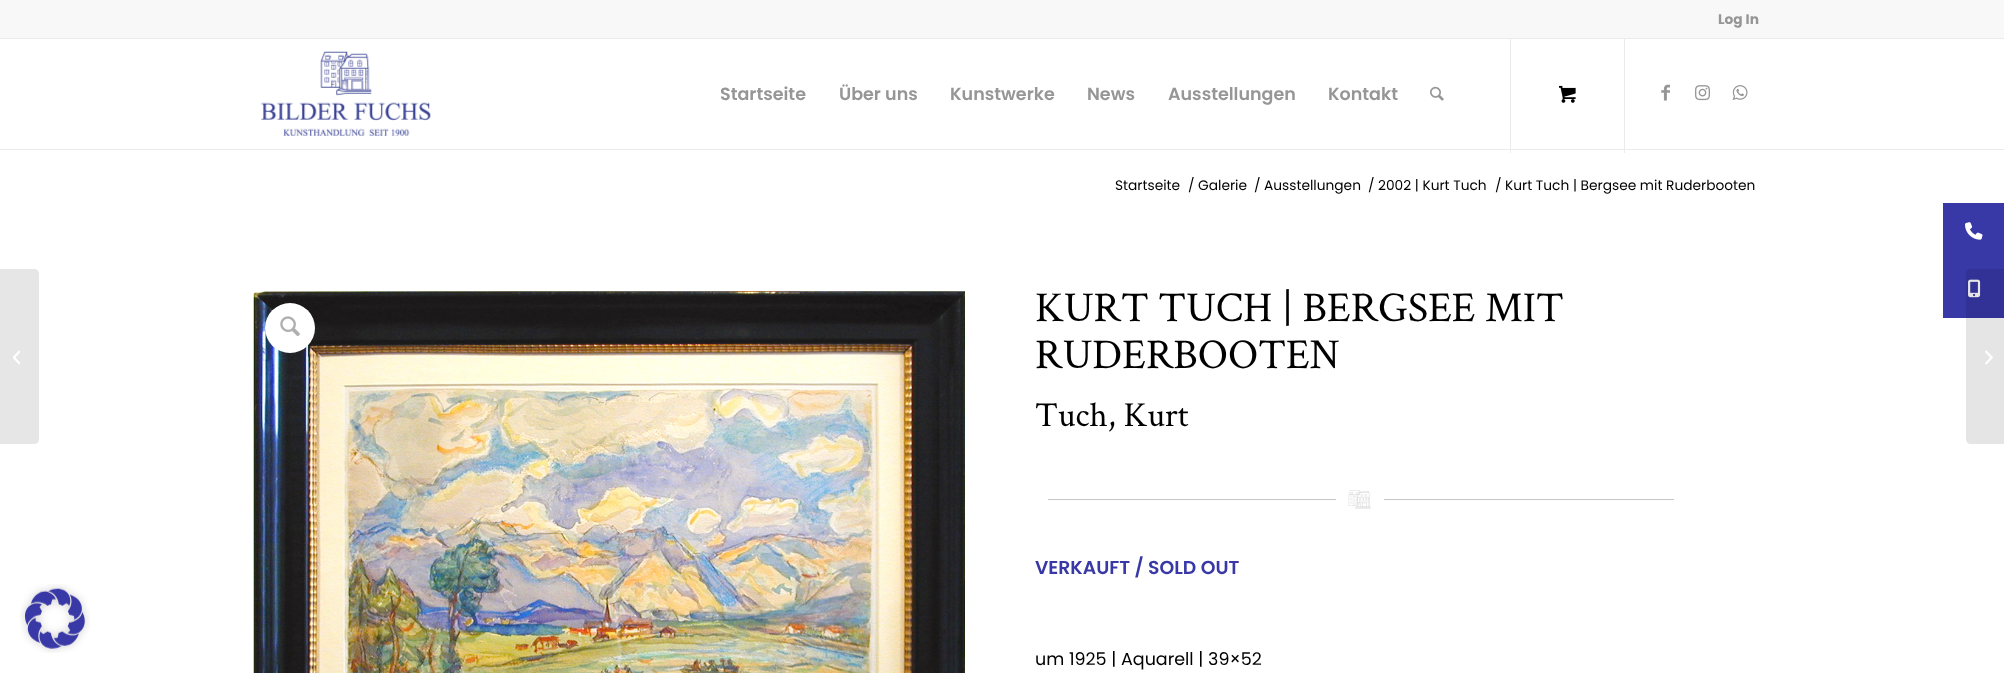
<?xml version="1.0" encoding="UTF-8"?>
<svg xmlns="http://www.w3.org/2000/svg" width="2004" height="673">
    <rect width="100%" height="100%" fill="#FFFFFF"/>
    <rect x="0" y="0" width="2004" height="38" fill="#F8F8F8"/>
    <rect x="0" y="38" width="2004" height="1" fill="#EBEBEB"/>
    <text x="1718" y="24" font-family="Poppins" font-size="13.75" font-weight="700" fill="#969696">Log In</text>
    <rect x="0" y="149" width="2004" height="1" fill="#EBEBEB"/>
    <image x="261" y="51" width="170" height="85" href="img_01.png"/>
    <text x="720" y="100" font-family="Poppins" font-size="17.5" font-weight="600" fill="#969696">Startseite</text>
    <text x="839" y="100" font-family="Poppins" font-size="17.5" font-weight="600" fill="#969696">Über uns</text>
    <text x="950" y="100" font-family="Poppins" font-size="17.5" font-weight="600" fill="#969696">Kunstwerke</text>
    <text x="1087" y="100" font-family="Poppins" font-size="17.5" font-weight="600" fill="#969696">News</text>
    <text x="1168" y="100" font-family="Poppins" font-size="17.5" font-weight="600" fill="#969696">Ausstellungen</text>
    <text x="1328" y="100" font-family="Poppins" font-size="17.5" font-weight="600" fill="#969696">Kontakt</text>
    <image x="1430" y="86" width="14" height="15" href="img_02.png"/>
    <rect x="1624" y="39" width="1" height="114" fill="#EBEBEB"/>
    <rect x="1510" y="39" width="1" height="114" fill="#EBEBEB"/>
    <image x="1559" y="85" width="17" height="18" href="img_03.png"/>
    <image x="1661" y="84" width="9" height="17" href="img_04.png"/>
    <image x="1695" y="85" width="15" height="16" href="img_05.png"/>
    <image x="1732" y="85" width="16" height="16" href="img_06.png"/>
    <text x="1115" y="190" font-family="Poppins" font-size="13.75" fill="#000000">Startseite</text>
    <text x="1188" y="190" font-family="Poppins" font-size="13.75" fill="#000000">/</text>
    <text x="1198" y="190" font-family="Poppins" font-size="13.75" fill="#000000">Galerie</text>
    <text x="1254" y="190" font-family="Poppins" font-size="13.75" fill="#000000">/</text>
    <text x="1264" y="190" font-family="Poppins" font-size="13.75" fill="#000000">Ausstellungen</text>
    <text x="1368" y="190" font-family="Poppins" font-size="13.75" fill="#000000">/</text>
    <text x="1378" y="190" font-family="Poppins" font-size="13.75" fill="#000000">2002 | Kurt Tuch</text>
    <text x="1495" y="190" font-family="Poppins" font-size="13.75" fill="#000000">/</text>
    <text x="1505" y="190" font-family="Poppins" font-size="13.75" fill="#000000">Kurt Tuch | Bergsee mit Ruderbooten</text>
    <path d="M 0 269 H 34 C 37 269 39 271 39 274 V 439 C 39 442 37 444 34 444 H 0 Z" fill="#E6E6E6"/>
    <image x="13" y="350" width="7" height="15" href="img_07.png"/>
    <image x="253" y="291" width="712" height="382" href="img_08.png"/>
    <circle cx="290" cy="328" r="25" fill="#FFFFFF"/>
    <image x="280" y="316" width="20" height="21" href="img_09.png"/>
    <text font-family="Crimson Text" font-size="42.5" fill="#000000">
        <tspan x="1035" y="321">KURT TUCH | BERGSEE MIT</tspan>
        <tspan x="1035" y="368">RUDERBOOTEN</tspan>
    </text>
    <text x="1035" y="426" font-family="Crimson Text" font-size="35" fill="#000000">Tuch, Kurt</text>
    <rect x="1048" y="499" width="288" height="1" fill="#C6C6C6"/>
    <image x="1348" y="490" width="23" height="19" href="img_10.png"/>
    <rect x="1384" y="499" width="290" height="1" fill="#C6C6C6"/>
    <text x="1035" y="574" font-family="Poppins" font-size="18.75" font-weight="600" fill="#3838A7">VERKAUFT / SOLD OUT</text>
    <text x="1035" y="665" font-family="Poppins" font-size="17.5" fill="#000000">um 1925 | Aquarell | 39×52</text>
    <rect x="1943" y="203" width="61" height="115" fill="#3838A7"/>
    <image x="1968" y="279" width="13" height="19" href="img_13.png"/>
    <path d="M 1971 269 H 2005 V 444 H 1971 C 1968 444 1966 442 1966 439 V 274 C 1966 271 1968 269 1971 269 Z" fill="#000000" fill-opacity="0.1"/>
    <image x="1985" y="350" width="8" height="15" href="img_11.png"/>
    <image x="1965" y="222" width="18" height="18" href="img_12.png"/>
    <image x="20" y="584" width="70" height="69" href="img_14.png"/>
</svg>
